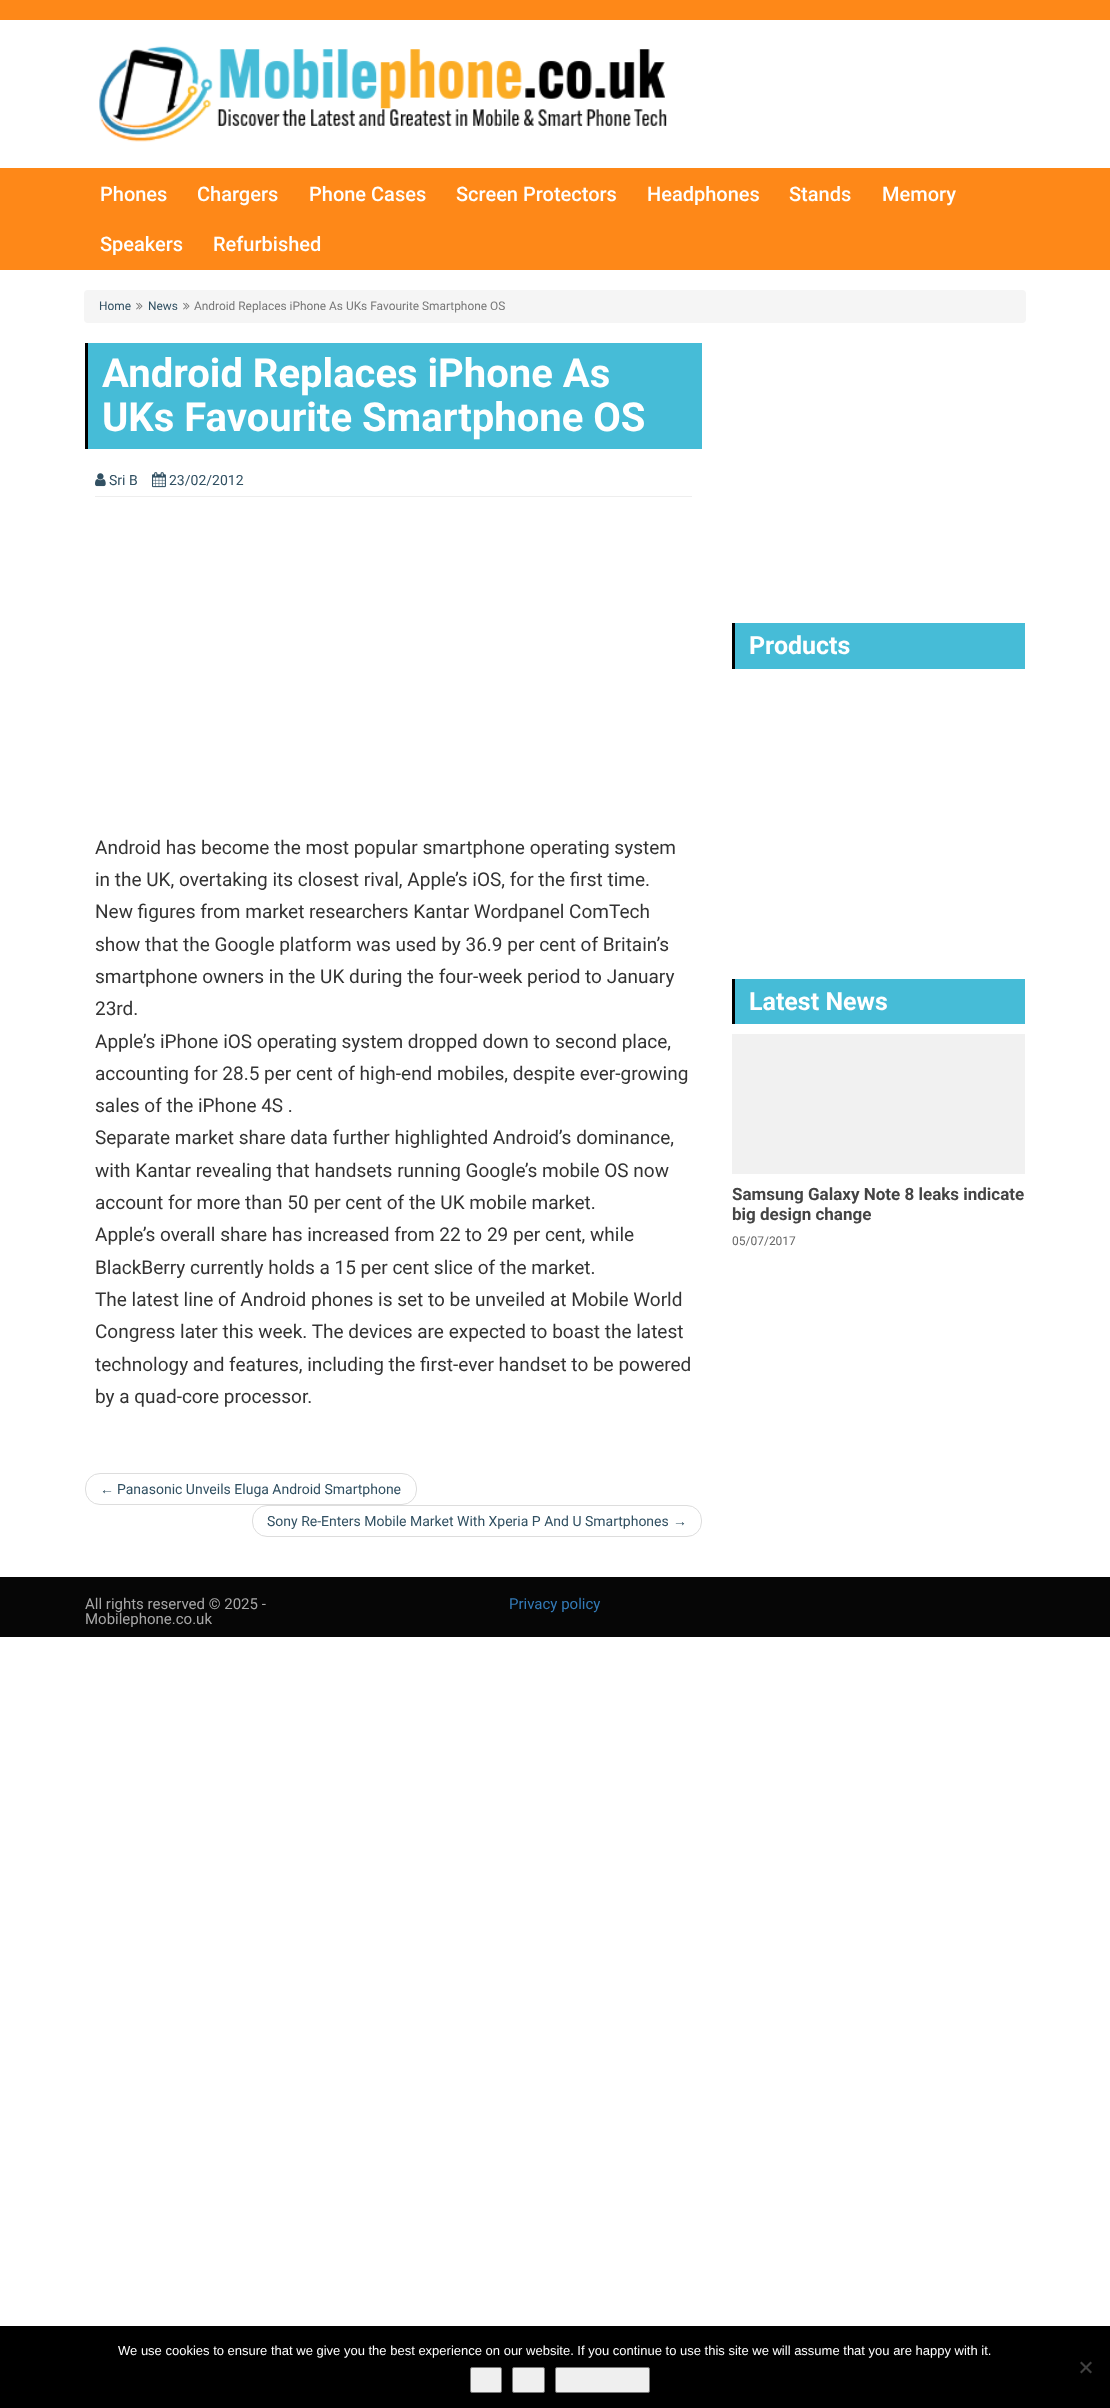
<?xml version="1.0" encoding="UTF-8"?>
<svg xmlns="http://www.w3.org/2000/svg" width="1110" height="2408">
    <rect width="100%" height="100%" fill="#FFFFFF"/>
    <rect x="0" y="0" width="1110" height="20" fill="#FE8818"/>
    <image x="99" y="46" width="568" height="96" href="img_01.png"/>
    <rect x="0" y="168" width="1110" height="102" fill="#FE8818"/>
    <text x="100" y="201" font-family="Roboto" font-size="20" font-weight="500" fill="#FFFFFF">Phones</text>
    <text x="197" y="201" font-family="Roboto" font-size="20" font-weight="500" fill="#FFFFFF">Chargers</text>
    <text x="309" y="201" font-family="Roboto" font-size="20" font-weight="500" fill="#FFFFFF">Phone Cases</text>
    <text x="456" y="201" font-family="Roboto" font-size="20" font-weight="500" fill="#FFFFFF">Screen Protectors</text>
    <text x="647" y="201" font-family="Roboto" font-size="20" font-weight="500" fill="#FFFFFF">Headphones</text>
    <text x="789" y="201" font-family="Roboto" font-size="20" font-weight="500" fill="#FFFFFF">Stands</text>
    <text x="882" y="201" font-family="Roboto" font-size="20" font-weight="500" fill="#FFFFFF">Memory</text>
    <text x="100" y="251" font-family="Roboto" font-size="20" font-weight="500" fill="#FFFFFF">Speakers</text>
    <text x="213" y="251" font-family="Roboto" font-size="20" font-weight="500" fill="#FFFFFF">Refurbished</text>
    <rect x="84" y="290" width="942" height="33" rx="4" fill="#F5F5F5"/>
    <text x="99" y="310" font-family="Roboto" font-size="11.9" fill="#315062">Home</text>
    <image x="136" y="302" width="7" height="8" href="img_02.png"/>
    <text x="148" y="310" font-family="Roboto" font-size="11.9" fill="#315062">News</text>
    <image x="183" y="302" width="7" height="8" href="img_02.png"/>
    <text x="194" y="310" font-family="Roboto" font-size="11.9" fill="#777777">Android Replaces iPhone As UKs Favourite Smartphone OS</text>
    <rect x="88" y="343" width="614" height="106" fill="#46BCD7"/>
    <rect x="85" y="343" width="3" height="106" fill="#000000"/>
    <text font-family="Roboto" font-size="40" font-weight="700" fill="#FFFFFF">
        <tspan x="102" y="387">Android Replaces iPhone As</tspan>
        <tspan x="102" y="431">UKs Favourite Smartphone OS</tspan>
    </text>
    <image x="95" y="473" width="11" height="14" href="img_03.png"/>
    <text x="109" y="485" font-family="Roboto" font-size="14" fill="#315062">Sri B</text>
    <image x="152" y="472" width="14" height="16" href="img_04.png"/>
    <text x="169" y="485" font-family="Roboto" font-size="14" fill="#315062">23/02/2012</text>
    <rect x="95" y="496" width="597" height="1" fill="#EEEEEE"/>
    <text font-family="Roboto" font-size="19" fill="#333333">
        <tspan x="95" y="854">Android has become the most popular smartphone operating system</tspan>
        <tspan x="95" y="886">in the UK, overtaking its closest rival, Apple’s iOS, for the first time.</tspan>
        <tspan x="95" y="918">New figures from market researchers Kantar Wordpanel ComTech</tspan>
        <tspan x="95" y="951">show that the Google platform was used by 36.9 per cent of Britain’s</tspan>
        <tspan x="95" y="983">smartphone owners in the UK during the four-week period to January</tspan>
        <tspan x="95" y="1015">23rd.</tspan>
        <tspan x="95" y="1048">Apple’s iPhone iOS operating system dropped down to second place,</tspan>
        <tspan x="95" y="1080">accounting for 28.5 per cent of high-end mobiles, despite ever-growing</tspan>
        <tspan x="95" y="1112">sales of the iPhone 4S .</tspan>
        <tspan x="95" y="1144">Separate market share data further highlighted Android’s dominance,</tspan>
        <tspan x="95" y="1177">with Kantar revealing that handsets running Google’s mobile OS now</tspan>
        <tspan x="95" y="1209">account for more than 50 per cent of the UK mobile market.</tspan>
        <tspan x="95" y="1241">Apple’s overall share has increased from 22 to 29 per cent, while</tspan>
        <tspan x="95" y="1274">BlackBerry currently holds a 15 per cent slice of the market.</tspan>
        <tspan x="95" y="1306">The latest line of Android phones is set to be unveiled at Mobile World</tspan>
        <tspan x="95" y="1338">Congress later this week. The devices are expected to boast the latest</tspan>
        <tspan x="95" y="1371">technology and features, including the first-ever handset to be powered</tspan>
        <tspan x="95" y="1403">by a quad-core processor.</tspan>
    </text>
    <rect x="85.5" y="1473.5" width="331" height="31" rx="14.5" fill="none" stroke="#DDDDDD"/>
    <text x="100" y="1494" font-family="Liberation Sans" font-size="14" fill="#315062">←</text>
    <text x="117" y="1494" font-family="Roboto" font-size="14" fill="#315062">Panasonic Unveils Eluga Android Smartphone</text>
    <rect x="252.5" y="1505.5" width="449" height="31" rx="14.5" fill="none" stroke="#DDDDDD"/>
    <text x="267" y="1526" font-family="Roboto" font-size="14" fill="#315062">Sony Re-Enters Mobile Market With Xperia P And U Smartphones</text>
    <text x="673" y="1526" font-family="Liberation Sans" font-size="14" fill="#315062">→</text>
    <rect x="735" y="623" width="290" height="46" fill="#46BCD7"/>
    <rect x="732" y="623" width="3" height="46" fill="#000000"/>
    <text x="749" y="654" font-family="Roboto" font-size="25" font-weight="700" fill="#FFFFFF">Products</text>
    <rect x="735" y="979" width="290" height="45" fill="#46BCD7"/>
    <rect x="732" y="979" width="3" height="45" fill="#000000"/>
    <text x="749" y="1010" font-family="Roboto" font-size="25" font-weight="700" fill="#FFFFFF">Latest News</text>
    <rect x="732" y="1034" width="293" height="140" fill="#F1F1F1"/>
    <text font-family="Roboto" font-size="17" font-weight="700" fill="#444444">
        <tspan x="732" y="1200">Samsung Galaxy Note 8 leaks indicate</tspan>
        <tspan x="732" y="1220">big design change</tspan>
    </text>
    <text x="732" y="1245" font-family="Roboto" font-size="12" fill="#666666">05/07/2017</text>
    <rect x="0" y="1577" width="1110" height="60" fill="#060606"/>
    <text font-family="Roboto" font-size="15" fill="#A7A7A7">
        <tspan x="85" y="1609">All rights reserved © 2025 -</tspan>
        <tspan x="85" y="1624">Mobilephone.co.uk</tspan>
    </text>
    <text x="509" y="1609" font-family="Roboto" font-size="15" fill="#337AB7">Privacy policy</text>
    <rect x="0" y="2326" width="1110" height="82" fill="#000000"/>
    <text x="118" y="2355" font-family="Liberation Sans" font-size="13" fill="#FFFFFF">We use cookies to ensure that we give you the best experience on our website. If you continue to use this site we will assume that you are happy with it.</text>
    <rect x="470.5" y="2367.5" width="31" height="25" rx="1.5" fill="#EFEFEF" stroke="#767676"/>
    <rect x="512.5" y="2367.5" width="32" height="25" rx="1.5" fill="#EFEFEF" stroke="#767676"/>
    <rect x="555.5" y="2367.5" width="94" height="25" rx="1.5" fill="#EFEFEF" stroke="#767676"/>
    <path d="M 1090.5 2361.5 L 1092 2363 L 1081.5 2373.5 L 1080 2372 Z" fill="#404040"/>
    <path d="M 1080 2363 L 1081.5 2361.5 L 1092 2372 L 1090.5 2373.5 Z" fill="#404040"/>
</svg>
